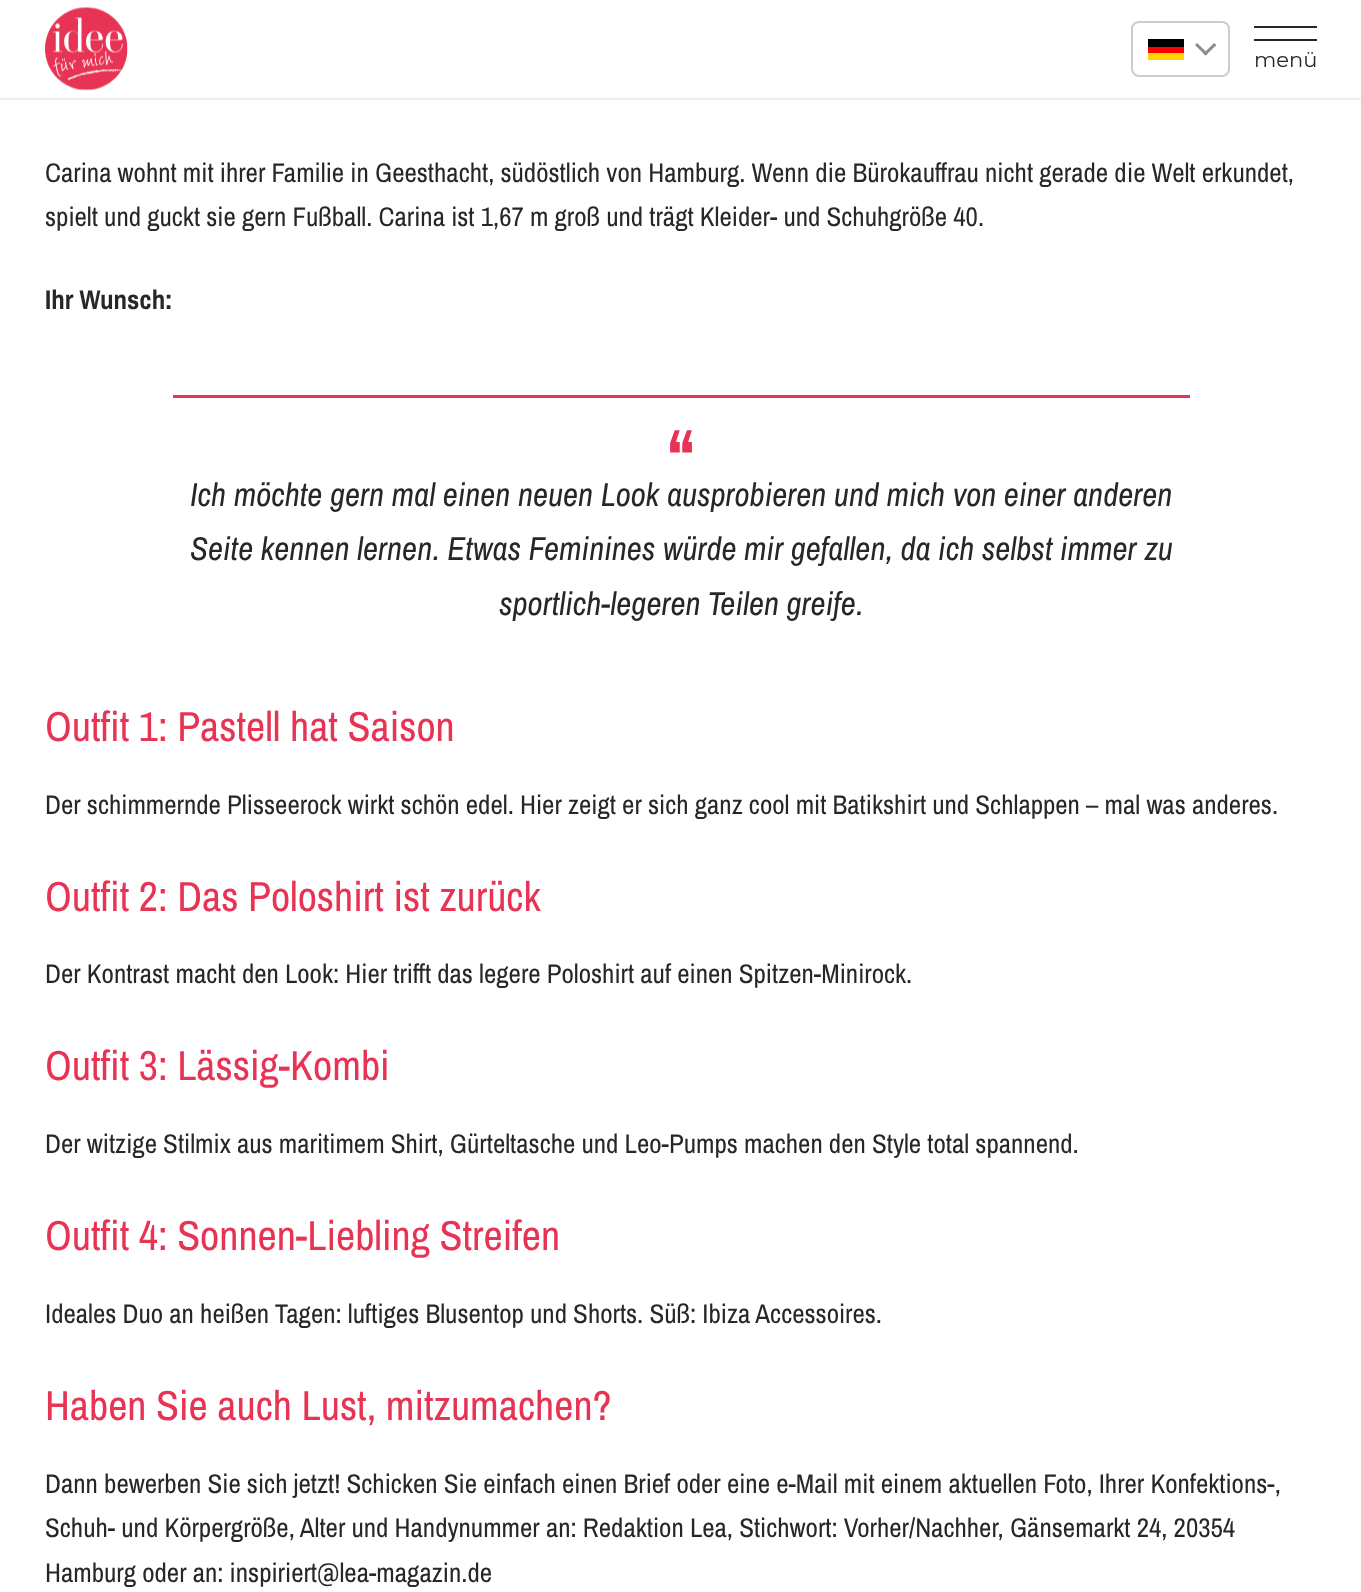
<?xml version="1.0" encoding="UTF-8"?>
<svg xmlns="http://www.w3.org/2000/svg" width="1361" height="1592">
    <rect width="100%" height="100%" fill="#FFFFFF"/>
    <rect x="0" y="98" width="1361" height="2" fill="#EEEEEE"/>
    <image x="45" y="7" width="83" height="84" href="img_01.png"/>
    <rect x="1132" y="22" width="97" height="54" rx="7" fill="none" stroke="#CCCCCC" stroke-width="2"/>
    <rect x="1148" y="53" width="36" height="7" fill="#FFD700"/>
    <rect x="1148" y="47" width="36" height="6" fill="#FF0000"/>
    <rect x="1148" y="39" width="36" height="8" fill="#000000"/>
    <path d="M 1205.5 55.5 L 1195 45 L 1197 43 L 1208 53.5 Z" fill="#8D8D8D"/>
    <path d="M 1205.5 55.5 L 1203.5 53.5 L 1214 43 L 1216.5 45 Z" fill="#8D8D8D"/>
    <rect x="1254" y="26" width="63" height="2" fill="#272727"/>
    <rect x="1254" y="39" width="63" height="2" fill="#272727"/>
    <text x="1254" y="67" font-family="Montserrat" font-size="21" font-weight="100" fill="#272727">menü</text>
    <text font-family="Archivo Narrow" font-size="27" fill="#272727">
        <tspan x="45" y="182">Carina wohnt mit ihrer Familie in Geesthacht, südöstlich von Hamburg. Wenn die Bürokauffrau nicht gerade die Welt erkundet,</tspan>
        <tspan x="45" y="226">spielt und guckt sie gern Fußball. Carina ist 1,67 m groß und trägt Kleider- und Schuhgröße 40.</tspan>
    </text>
    <text x="45" y="309" font-family="Archivo Narrow" font-size="27" font-weight="700" fill="#272727">Ihr Wunsch:</text>
    <rect x="173" y="395" width="1017" height="3" fill="#E83454"/>
    <text x="668" y="496" font-family="Archivo Narrow" font-size="96" fill="#E83454">“</text>
    <text font-family="Archivo Narrow" font-size="33" font-style="italic" fill="#272727">
        <tspan x="190" y="506">Ich möchte gern mal einen neuen Look ausprobieren und mich von einer anderen</tspan>
        <tspan x="190" y="560">Seite kennen lernen. Etwas Feminines würde mir gefallen, da ich selbst immer zu</tspan>
    </text>
    <text x="499" y="615" font-family="Archivo Narrow" font-size="33" font-style="italic" fill="#272727">sportlich-legeren Teilen greife.</text>
    <text x="45" y="741" font-family="Archivo Narrow" font-size="42" fill="#E83454">Outfit 1: Pastell hat Saison</text>
    <text x="45" y="814" font-family="Archivo Narrow" font-size="27" fill="#272727">Der schimmernde Plisseerock wirkt schön edel. Hier zeigt er sich ganz cool mit Batikshirt und Schlappen – mal was anderes.</text>
    <text x="45" y="911" font-family="Archivo Narrow" font-size="42" fill="#E83454">Outfit 2: Das Poloshirt ist zurück</text>
    <text x="45" y="983" font-family="Archivo Narrow" font-size="27" fill="#272727">Der Kontrast macht den Look: Hier trifft das legere Poloshirt auf einen Spitzen-Minirock.</text>
    <text x="45" y="1080" font-family="Archivo Narrow" font-size="42" fill="#E83454">Outfit 3: Lässig-Kombi</text>
    <text x="45" y="1153" font-family="Archivo Narrow" font-size="27" fill="#272727">Der witzige Stilmix aus maritimem Shirt, Gürteltasche und Leo-Pumps machen den Style total spannend.</text>
    <text x="45" y="1250" font-family="Archivo Narrow" font-size="42" fill="#E83454">Outfit 4: Sonnen-Liebling Streifen</text>
    <text x="45" y="1323" font-family="Archivo Narrow" font-size="27" fill="#272727">Ideales Duo an heißen Tagen: luftiges Blusentop und Shorts. Süß: Ibiza Accessoires.</text>
    <text x="45" y="1420" font-family="Archivo Narrow" font-size="42" fill="#E83454">Haben Sie auch Lust, mitzumachen?</text>
    <text font-family="Archivo Narrow" font-size="27" fill="#272727">
        <tspan x="45" y="1493">Dann bewerben Sie sich jetzt! Schicken Sie einfach einen Brief oder eine e-Mail mit einem aktuellen Foto, Ihrer Konfektions-,</tspan>
        <tspan x="45" y="1537">Schuh- und Körpergröße, Alter und Handynummer an: Redaktion Lea, Stichwort: Vorher/Nachher, Gänsemarkt 24, 20354</tspan>
        <tspan x="45" y="1582">Hamburg oder an: inspiriert@lea-magazin.de</tspan>
    </text>
</svg>
